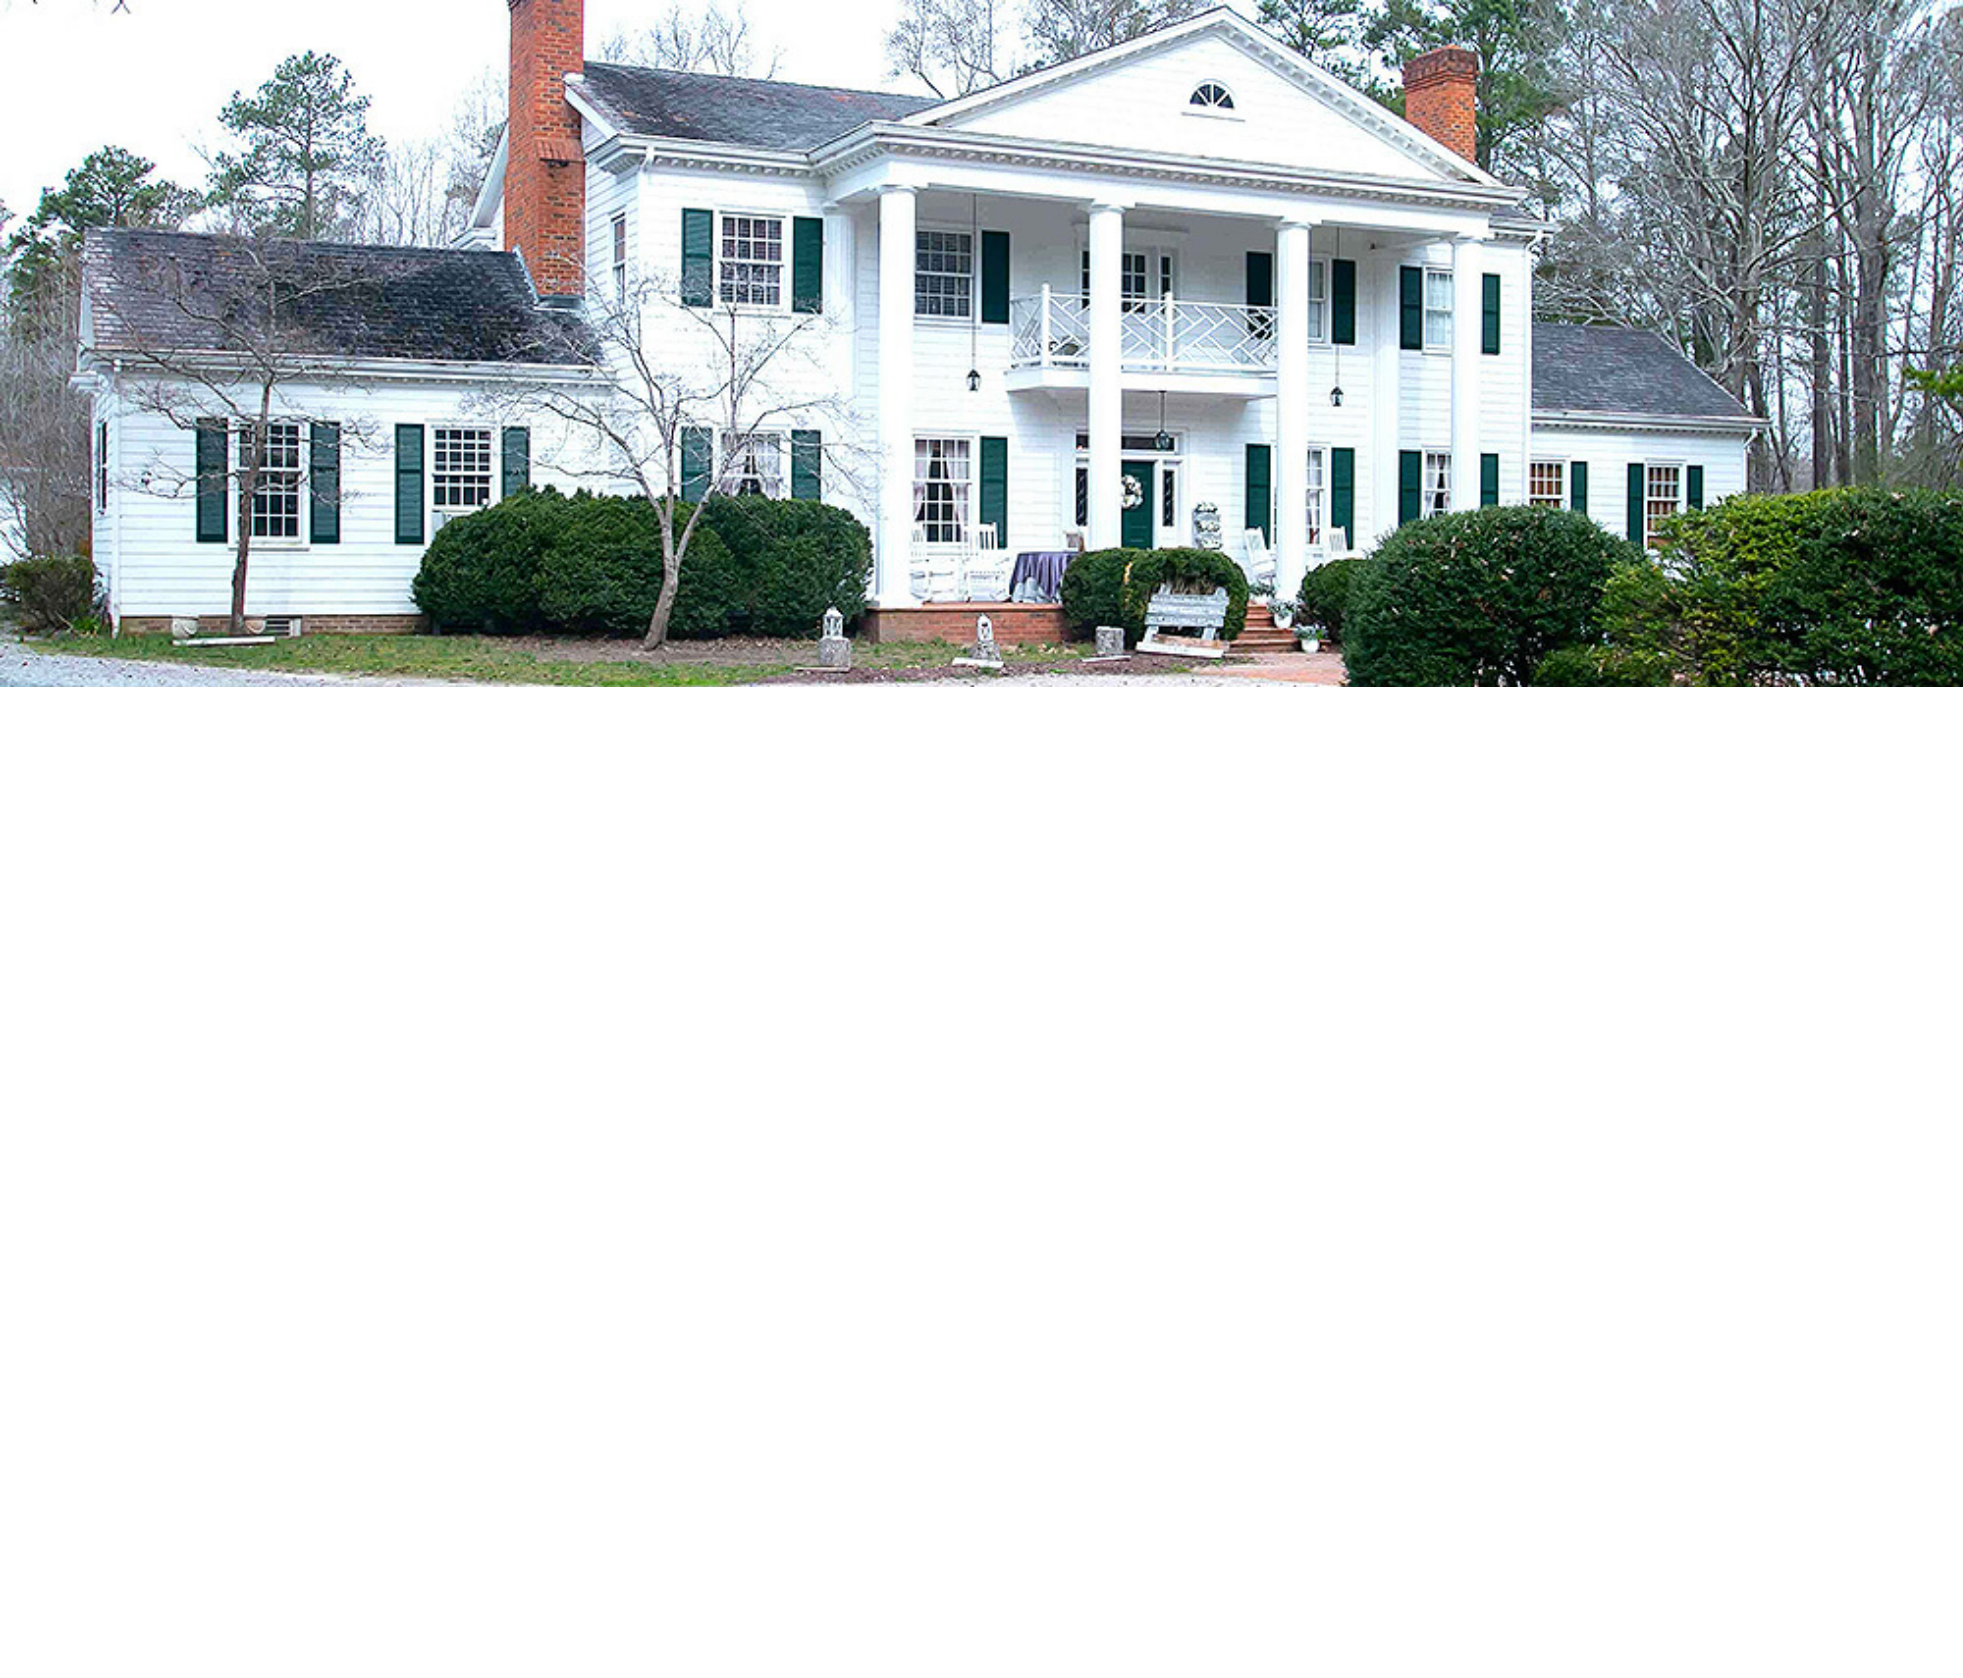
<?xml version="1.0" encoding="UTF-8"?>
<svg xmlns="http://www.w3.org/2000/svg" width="1963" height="1678">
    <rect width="100%" height="100%" fill="#FFFFFF"/>
    <image x="0" y="0" width="1963" height="687" href="img_01.png"/>
</svg>
